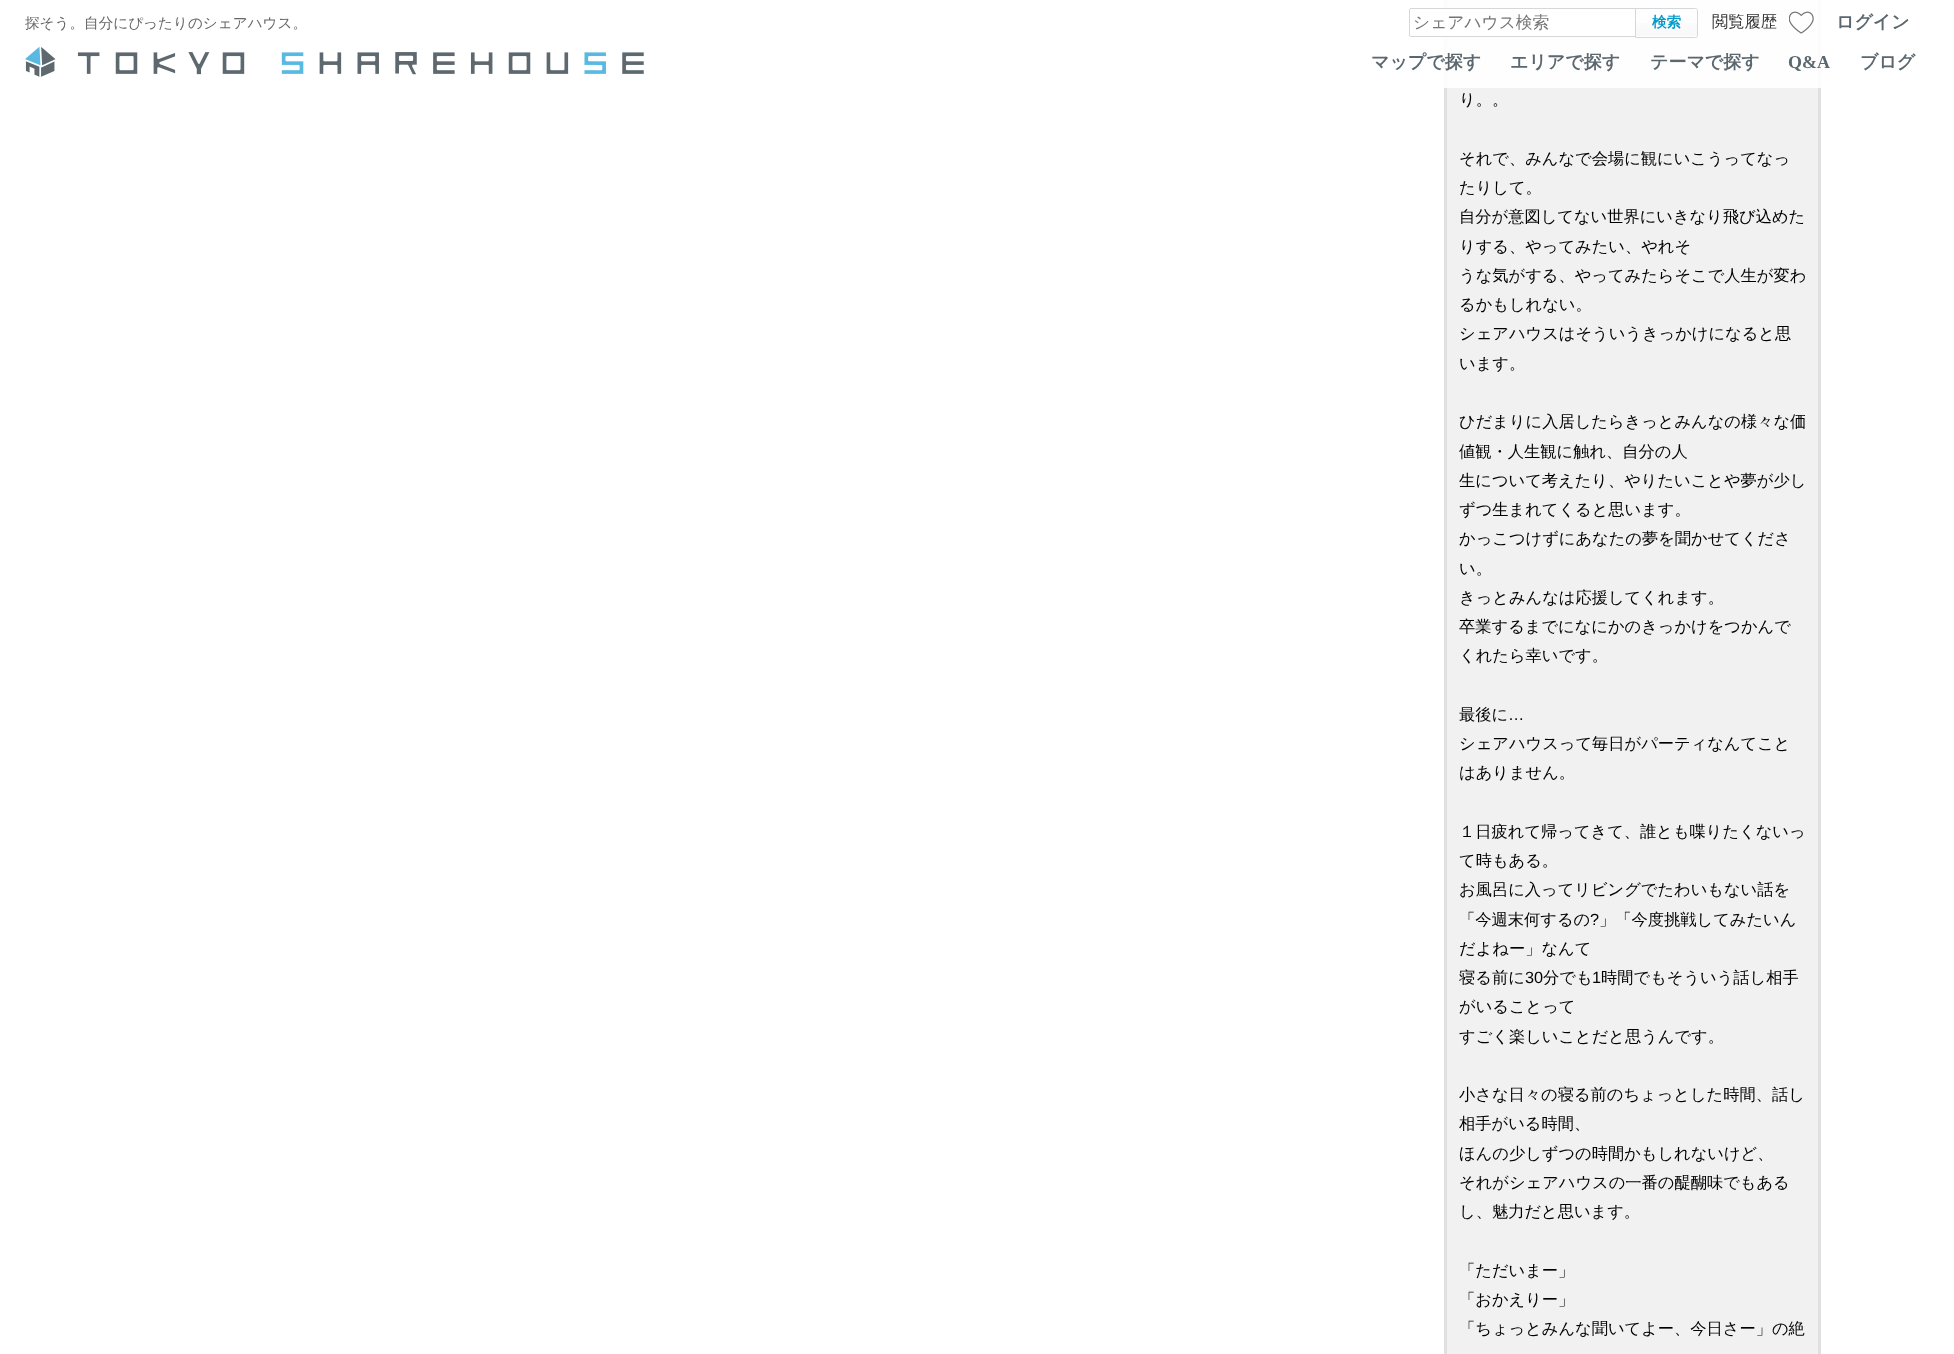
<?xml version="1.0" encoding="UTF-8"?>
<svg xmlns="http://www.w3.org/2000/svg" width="1954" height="1354">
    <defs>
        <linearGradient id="g1" gradientUnits="userSpaceOnUse" x1="1636" y1="9" x2="1636" y2="36"><stop offset="0" stop-color="#FFFFFF"/><stop offset="1" stop-color="#F8F8FA"/></linearGradient>
        <clipPath id="clip1"><path d="M 1635 8 H 1695.5 C 1697 8 1698 9 1698 10.5 V 35.5 C 1698 37 1697 38 1695.5 38 H 1635 Z"/></clipPath>
        <linearGradient id="g2" gradientUnits="userSpaceOnUse" x1="1636" y1="36" x2="1636" y2="64"><stop offset="0" stop-color="#FFFFFF"/><stop offset="1" stop-color="#F8F8FA"/></linearGradient>
    </defs>
    <rect width="100%" height="100%" fill="#FFFFFF"/>
    <rect x="1445.5" y="-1.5" width="374" height="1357" fill="#F1F1F1" stroke="#E0E0E0" stroke-width="3"/>
    <rect x="1444" y="0" width="377" height="88" fill="#FFFFFF" fill-opacity="0.9"/>
    <text x="25" y="28" font-family="WenQuanYi Zen Hei" font-size="14.6" font-weight="500" fill="#666666">探そう。自分にぴったりのシェアハウス。</text>
    <path d="M 1411 9 H 1636 V 36 H 1411 C 1410.5 36 1410 35.5 1410 35 V 10 C 1410 9.5 1410.5 9 1411 9 Z" fill="#FFFFFF"/>
    <rect x="1410" y="8" width="226" height="1" fill="#D6D7DB"/>
    <rect x="1410" y="36" width="226" height="1" fill="#D6D7DB"/>
    <rect x="1409" y="9" width="1" height="27" fill="#D6D7DB"/>
    <text x="1413" y="28" font-family="WenQuanYi Zen Hei" font-size="16.75" font-weight="500" fill="#757575">シェアハウス検索</text>
    <rect x="1636" y="23" width="62" height="13" fill="url(#g1)"/>
    <g clip-path="url(#clip1)">
        <rect x="1635" y="36" width="63" height="2" fill="url(#g2)"/>
    </g>
    <path d="M 1635.5 8.5 H 1695.5 C 1696.5 8.5 1697.5 9.5 1697.5 10.5 V 35.5 C 1697.5 36.5 1696.5 37.5 1695.5 37.5 H 1635.5 Z" fill="none" stroke="#D6D7DB"/>
    <text x="1652" y="27" font-family="WenQuanYi Zen Hei" font-size="14.6" font-weight="700" fill="#0099CC">検索</text>
    <text x="1712" y="27" font-family="WenQuanYi Zen Hei" font-size="16.25" font-weight="500" fill="#333333">閲覧履歴</text>
    <image x="1789" y="11" width="25" height="23" href="img_01.png"/>
    <text x="1836" y="28" font-family="WenQuanYi Zen Hei" font-size="18" font-weight="700" fill="#5B676E">ログイン</text>
    <image x="25" y="46" width="619" height="31" href="img_02.png"/>
    <text x="1371" y="68" font-family="WenQuanYi Zen Hei" font-size="18" font-weight="700" fill="#5B676E">マップで探す</text>
    <text x="1510" y="68" font-family="WenQuanYi Zen Hei" font-size="18" font-weight="700" fill="#5B676E">エリアで探す</text>
    <text x="1650" y="68" font-family="WenQuanYi Zen Hei" font-size="18" font-weight="700" fill="#5B676E">テーマで探す</text>
    <text x="1788" y="68" font-family="Liberation Serif" font-size="18" font-weight="700" fill="#5B676E">Q&amp;A</text>
    <text x="1860" y="68" font-family="WenQuanYi Zen Hei" font-size="18" font-weight="700" fill="#5B676E">ブログ</text>
    <text x="1459" y="105" font-family="WenQuanYi Zen Hei" font-size="16.25" font-weight="500" fill="#000000">り。。</text>
    <text font-family="WenQuanYi Zen Hei" font-size="16.25" font-weight="500" fill="#000000">
        <tspan x="1459" y="164">それで、みんなで会場に観にいこうってなっ</tspan>
        <tspan x="1459" y="193">たりして。</tspan>
        <tspan x="1459" y="222">自分が意図してない世界にいきなり飛び込めた</tspan>
        <tspan x="1459" y="252">りする、やってみたい、やれそ</tspan>
        <tspan x="1459" y="281">うな気がする、やってみたらそこで人生が変わ</tspan>
        <tspan x="1459" y="310">るかもしれない。</tspan>
        <tspan x="1459" y="339">シェアハウスはそういうきっかけになると思</tspan>
        <tspan x="1459" y="369">います。</tspan>
    </text>
    <text font-family="WenQuanYi Zen Hei" font-size="16.25" font-weight="500" fill="#000000">
        <tspan x="1459" y="427">ひだまりに入居したらきっとみんなの様々な価</tspan>
        <tspan x="1459" y="457">値観・人生観に触れ、自分の人</tspan>
        <tspan x="1459" y="486">生について考えたり、やりたいことや夢が少し</tspan>
        <tspan x="1459" y="515">ずつ生まれてくると思います。</tspan>
        <tspan x="1459" y="544">かっこつけずにあなたの夢を聞かせてくださ</tspan>
        <tspan x="1459" y="574">い。</tspan>
        <tspan x="1459" y="603">きっとみんなは応援してくれます。</tspan>
        <tspan x="1459" y="632">卒業するまでになにかのきっかけをつかんで</tspan>
        <tspan x="1459" y="661">くれたら幸いです。</tspan>
    </text>
    <text x="1459" y="720" font-family="WenQuanYi Zen Hei" font-size="16.25" font-weight="500" fill="#000000">最後に</text>
    <text x="1508" y="720" font-family="Liberation Sans" font-size="16.25" fill="#000000">…</text>
    <text font-family="WenQuanYi Zen Hei" font-size="16.25" font-weight="500" fill="#000000">
        <tspan x="1459" y="749">シェアハウスって毎日がパーティなんてこと</tspan>
        <tspan x="1459" y="778">はありません。</tspan>
    </text>
    <text font-family="WenQuanYi Zen Hei" font-size="16.25" font-weight="500" fill="#000000">
        <tspan x="1459" y="837">１日疲れて帰ってきて、誰とも喋りたくないっ</tspan>
        <tspan x="1459" y="866">て時もある。</tspan>
        <tspan x="1459" y="895">お風呂に入ってリビングでたわいもない話を</tspan>
        <tspan x="1459" y="925">「今週末何するの</tspan>
    </text>
    <text x="1590" y="925" font-family="Liberation Sans" font-size="16.25" fill="#000000">?</text>
    <text x="1599" y="925" font-family="WenQuanYi Zen Hei" font-size="16.25" font-weight="500" fill="#000000">」「今度挑戦してみたいん</text>
    <text font-family="WenQuanYi Zen Hei" font-size="16.25" font-weight="500" fill="#000000">
        <tspan x="1459" y="954">だよねー」なんて</tspan>
        <tspan x="1459" y="983">寝る前に</tspan>
    </text>
    <text x="1525" y="983" font-family="Liberation Sans" font-size="16.25" fill="#000000">30</text>
    <text x="1543" y="983" font-family="WenQuanYi Zen Hei" font-size="16.25" font-weight="500" fill="#000000">分でも</text>
    <text x="1592" y="983" font-family="Liberation Sans" font-size="16.25" fill="#000000">1</text>
    <text x="1601" y="983" font-family="WenQuanYi Zen Hei" font-size="16.25" font-weight="500" fill="#000000">時間でもそういう話し相手</text>
    <text font-family="WenQuanYi Zen Hei" font-size="16.25" font-weight="500" fill="#000000">
        <tspan x="1459" y="1012">がいることって</tspan>
        <tspan x="1459" y="1042">すごく楽しいことだと思うんです。</tspan>
    </text>
    <text font-family="WenQuanYi Zen Hei" font-size="16.25" font-weight="500" fill="#000000">
        <tspan x="1459" y="1100">小さな日々の寝る前のちょっとした時間、話し</tspan>
        <tspan x="1459" y="1129">相手がいる時間、</tspan>
        <tspan x="1459" y="1159">ほんの少しずつの時間かもしれないけど、</tspan>
        <tspan x="1459" y="1188">それがシェアハウスの一番の醍醐味でもある</tspan>
        <tspan x="1459" y="1217">し、魅力だと思います。</tspan>
    </text>
    <text font-family="WenQuanYi Zen Hei" font-size="16.25" font-weight="500" fill="#000000">
        <tspan x="1459" y="1276">「ただいまー」</tspan>
        <tspan x="1459" y="1305">「おかえりー」</tspan>
        <tspan x="1459" y="1334">「ちょっとみんな聞いてよー、今日さー」の絶</tspan>
    </text>
</svg>
